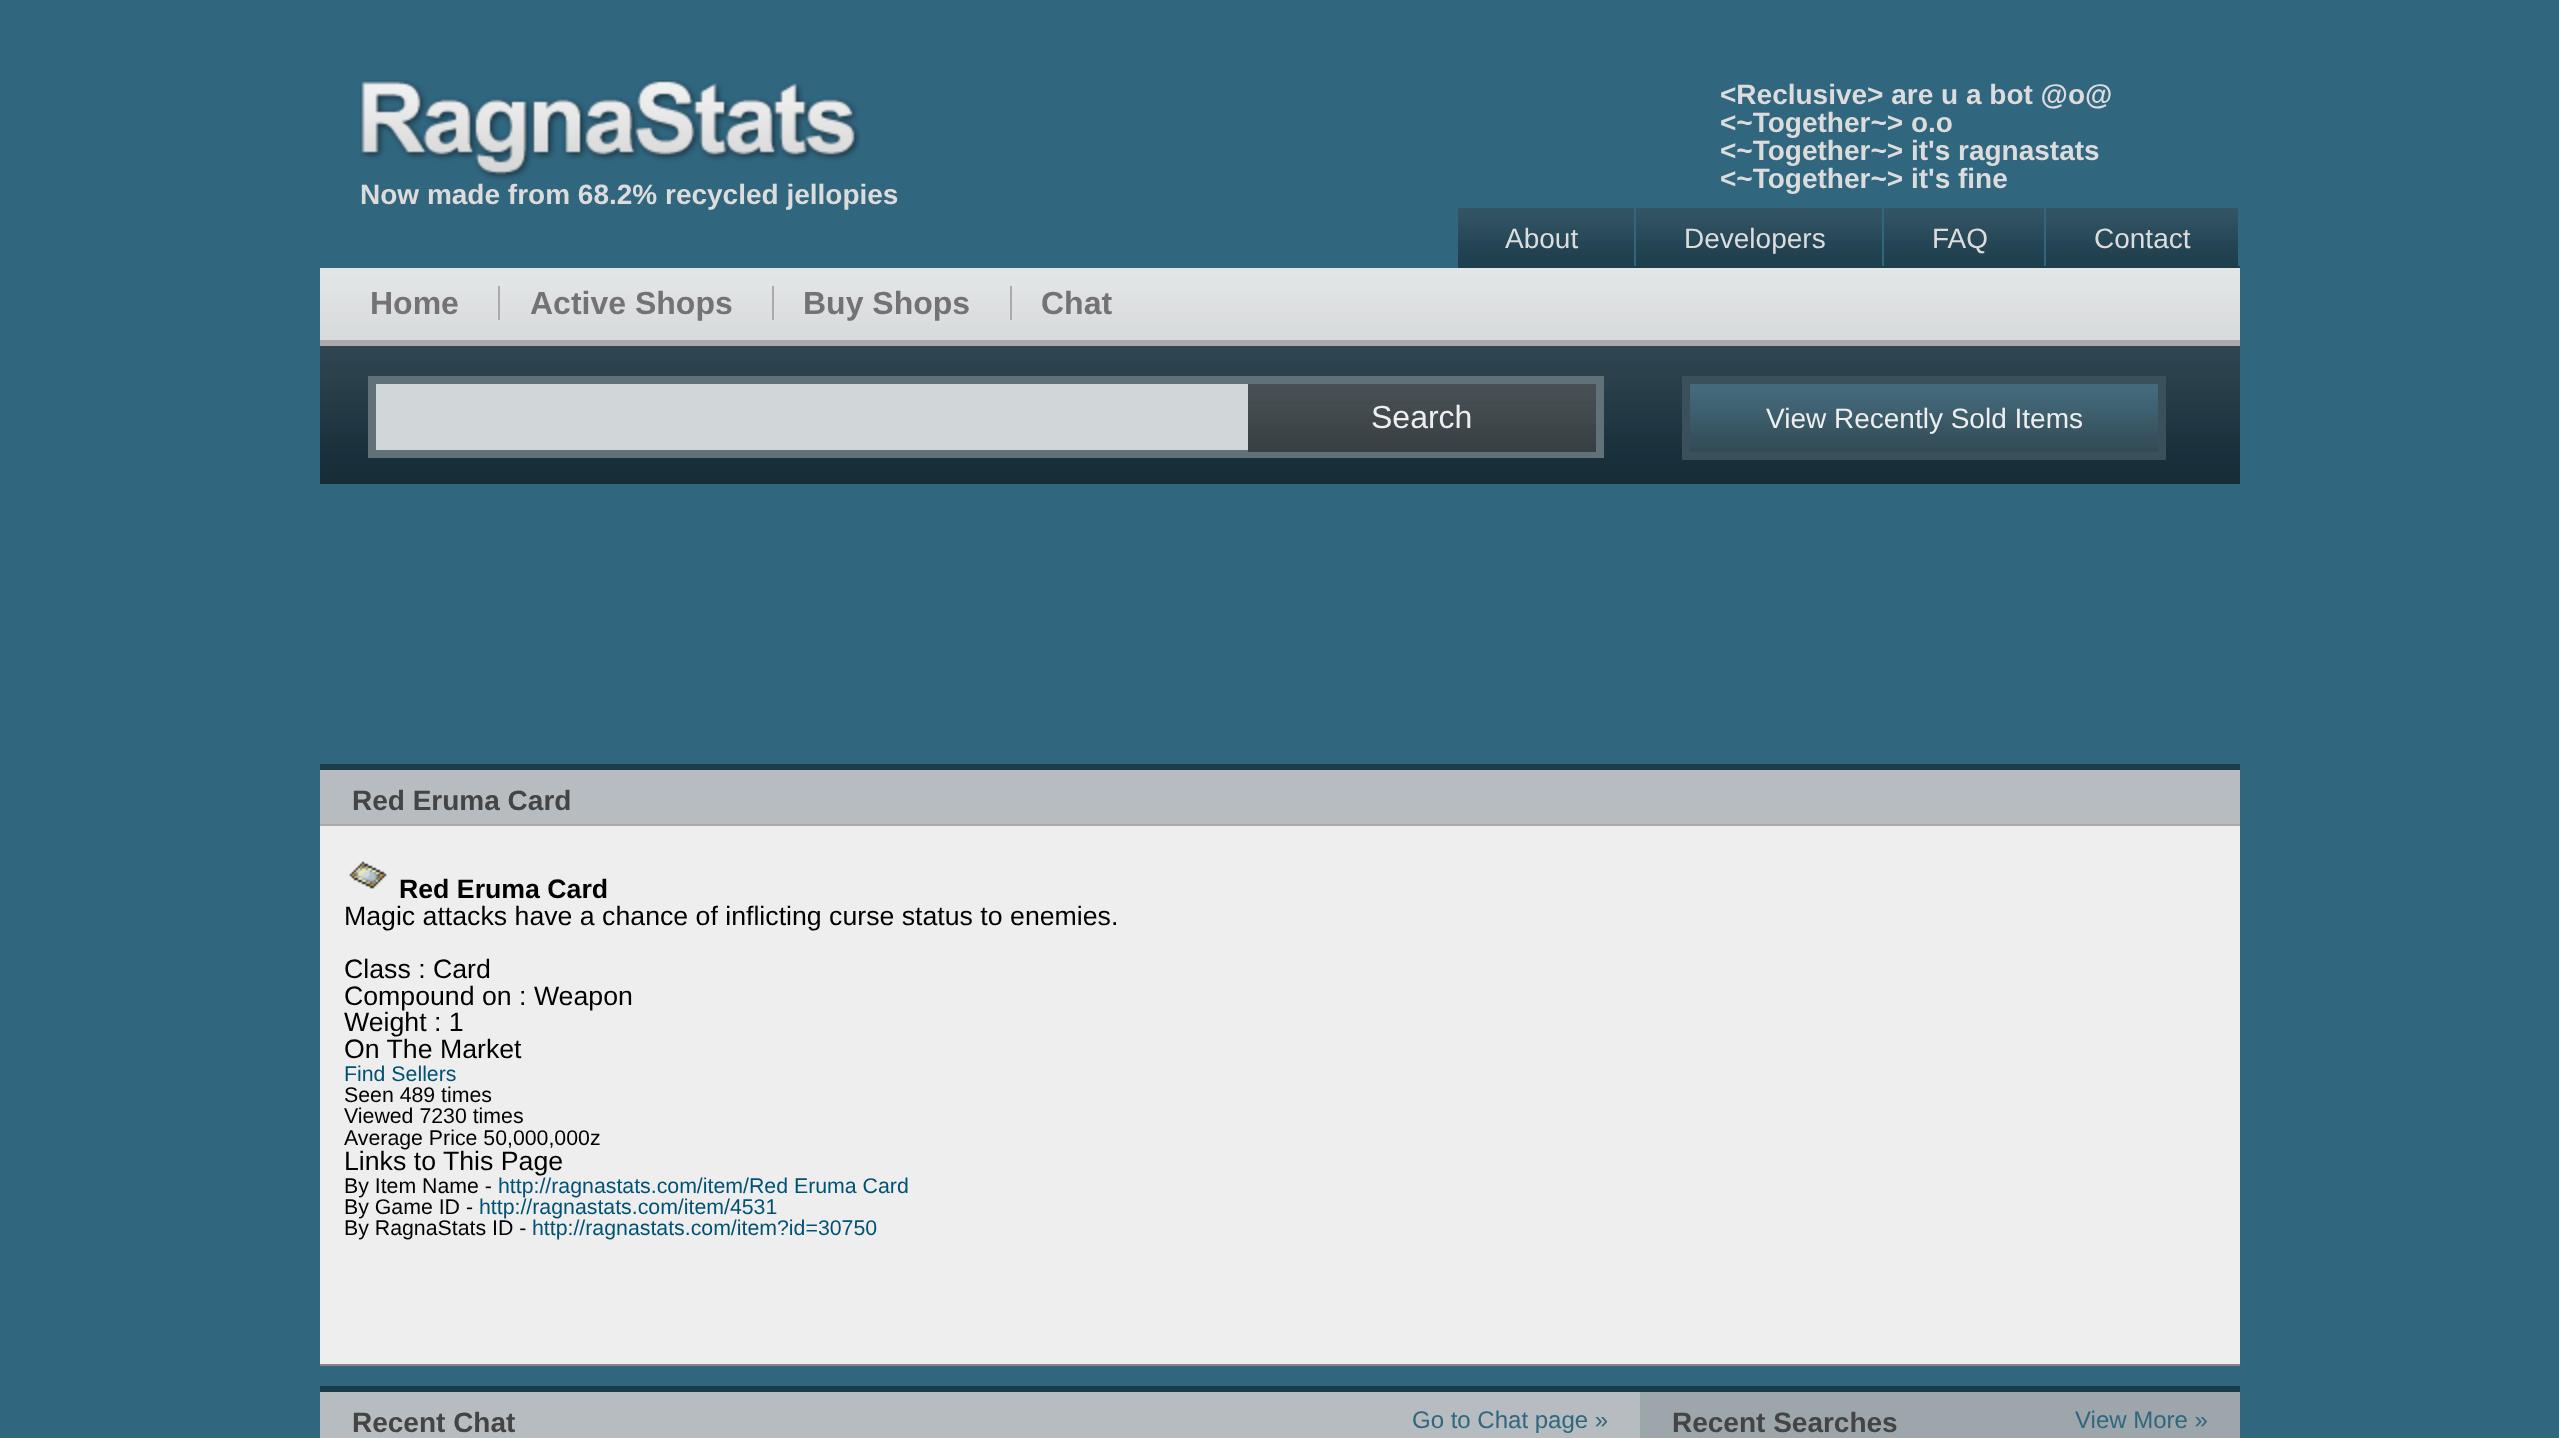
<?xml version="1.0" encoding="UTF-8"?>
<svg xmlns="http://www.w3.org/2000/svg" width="2559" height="1438">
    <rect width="100%" height="100%" fill="#31667F"/>
    <image x="360" y="80" width="500" height="100" href="img_01.png"/>
    <text font-family="Liberation Sans" font-size="28" font-weight="700" fill="#DCDCDC">
        <tspan x="1720" y="104">&lt;Reclusive&gt; are u a bot @o@</tspan>
        <tspan x="1720" y="132">&lt;~Together~&gt; o.o</tspan>
        <tspan x="1720" y="160">&lt;~Together~&gt; it's ragnastats</tspan>
        <tspan x="1720" y="188">&lt;~Together~&gt; it's fine</tspan>
    </text>
    <text x="360" y="204" font-family="Liberation Sans" font-size="28" font-weight="700" fill="#DCDCDC">Now made from 68.2% recycled jellopies</text>
    <image x="1458" y="208" width="782" height="60" href="img_02.png"/>
    <text x="1505" y="248" font-family="Liberation Sans" font-size="28" fill="#DCDCDC">About</text>
    <rect x="1634" y="208" width="2" height="58" fill="#31667E"/>
    <text x="1684" y="248" font-family="Liberation Sans" font-size="28" fill="#DCDCDC">Developers</text>
    <rect x="1882" y="208" width="2" height="58" fill="#31667E"/>
    <text x="1932" y="248" font-family="Liberation Sans" font-size="28" fill="#DCDCDC">FAQ</text>
    <rect x="2044" y="208" width="2" height="58" fill="#31667E"/>
    <text x="2094" y="248" font-family="Liberation Sans" font-size="28" fill="#DCDCDC">Contact</text>
    <rect x="2238" y="208" width="2" height="58" fill="#31667E"/>
    <image x="320" y="346" width="1920" height="138" href="img_03.png"/>
    <image x="320" y="268" width="1920" height="72" href="img_04.png"/>
    <rect x="320" y="340" width="1920" height="6" fill="#AAAAAA"/>
    <text x="370" y="314" font-family="Liberation Sans" font-size="32" font-weight="700" fill="#737373">Home</text>
    <rect x="498" y="286" width="2" height="34" fill="#AAAAAA"/>
    <text x="530" y="314" font-family="Liberation Sans" font-size="32" font-weight="700" fill="#737373">Active Shops</text>
    <rect x="772" y="286" width="2" height="34" fill="#AAAAAA"/>
    <text x="803" y="314" font-family="Liberation Sans" font-size="32" font-weight="700" fill="#737373">Buy Shops</text>
    <rect x="1010" y="286" width="2" height="34" fill="#AAAAAA"/>
    <text x="1041" y="314" font-family="Liberation Sans" font-size="32" font-weight="700" fill="#737373">Chat</text>
    <rect x="376" y="384" width="872" height="66" fill="#D1D6D8"/>
    <rect x="372" y="380" width="1228" height="74" fill="none" stroke="#607178" stroke-width="8"/>
    <image x="1248" y="384" width="348" height="68" href="img_05.png"/>
    <text x="1371" y="428" font-family="Liberation Sans" font-size="32" fill="#EEEEEE">Search</text>
    <image x="1690" y="384" width="468" height="68" href="img_06.png"/>
    <rect x="1686" y="380" width="476" height="76" fill="none" stroke="#3A505A" stroke-width="8"/>
    <text x="1766" y="428" font-family="Liberation Sans" font-size="28" fill="#EEEEEE">View Recently Sold Items</text>
    <rect x="320" y="826" width="1920" height="538" fill="#EEEEEE"/>
    <rect x="320" y="1364" width="1920" height="2" fill="#888888"/>
    <rect x="320" y="770" width="1920" height="54" fill="#B6BCBF"/>
    <rect x="320" y="764" width="1920" height="6" fill="#1C3C4A"/>
    <rect x="320" y="824" width="1920" height="2" fill="#AAAAAA"/>
    <text x="352" y="810" font-family="Liberation Sans" font-size="28" font-weight="700" fill="#444444">Red Eruma Card</text>
    <image x="349" y="861" width="38" height="28" href="img_07.png"/>
    <text x="399" y="898" font-family="Liberation Sans" font-size="26.7" font-weight="700" fill="#000000">Red Eruma Card</text>
    <text font-family="Liberation Sans" font-size="26.7" fill="#000000">
        <tspan x="344" y="925">Magic attacks have a chance of inflicting curse status to enemies.</tspan>
        <tspan x="344" y="978">Class : Card</tspan>
        <tspan x="344" y="1005">Compound on : Weapon</tspan>
        <tspan x="344" y="1031">Weight : 1</tspan>
        <tspan x="344" y="1058">On The Market</tspan>
    </text>
    <text x="344" y="1081" font-family="Liberation Sans" font-size="21.3" fill="#005173">Find Sellers</text>
    <text font-family="Liberation Sans" font-size="21.3" fill="#000000">
        <tspan x="344" y="1102">Seen 489 times</tspan>
        <tspan x="344" y="1123">Viewed 7230 times</tspan>
        <tspan x="344" y="1145">Average Price 50,000,000z</tspan>
    </text>
    <text x="344" y="1170" font-family="Liberation Sans" font-size="26.7" fill="#000000">Links to This Page</text>
    <text x="344" y="1193" font-family="Liberation Sans" font-size="21.3" fill="#000000">By Item Name -</text>
    <text x="498" y="1193" font-family="Liberation Sans" font-size="21.3" fill="#005173">http://ragnastats.com/item/Red Eruma Card</text>
    <text x="344" y="1214" font-family="Liberation Sans" font-size="21.3" fill="#000000">By Game ID -</text>
    <text x="479" y="1214" font-family="Liberation Sans" font-size="21.3" fill="#005173">http://ragnastats.com/item/4531</text>
    <text x="344" y="1235" font-family="Liberation Sans" font-size="21.3" fill="#000000">By RagnaStats ID -</text>
    <text x="532" y="1235" font-family="Liberation Sans" font-size="21.3" fill="#005173">http://ragnastats.com/item?id=30750</text>
    <rect x="320" y="1392" width="1320" height="46" fill="#B6BCBF"/>
    <text x="352" y="1432" font-family="Liberation Sans" font-size="28" font-weight="700" fill="#444444">Recent Chat</text>
    <text x="1412" y="1428" font-family="Liberation Sans" font-size="24" fill="#31667F">Go to Chat page »</text>
    <rect x="1640" y="1392" width="600" height="46" fill="#9CA6AB"/>
    <rect x="320" y="1386" width="1920" height="6" fill="#1C3C4A"/>
    <text x="1672" y="1432" font-family="Liberation Sans" font-size="28" font-weight="700" fill="#444444">Recent Searches</text>
    <text x="2075" y="1428" font-family="Liberation Sans" font-size="24" fill="#31667F">View More »</text>
</svg>
